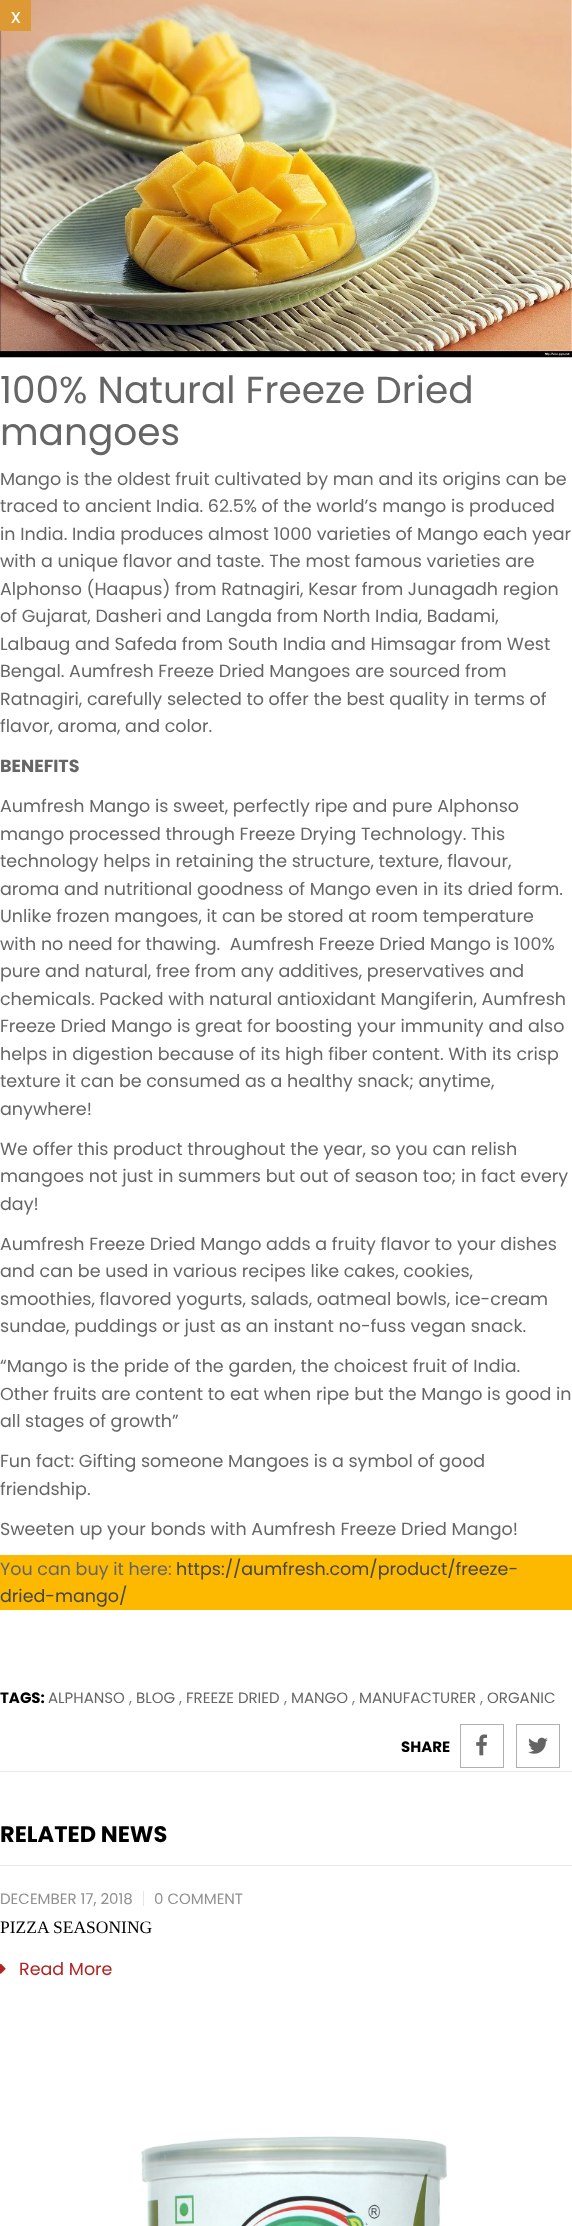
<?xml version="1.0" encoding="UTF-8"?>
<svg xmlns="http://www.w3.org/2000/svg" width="572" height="2226">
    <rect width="100%" height="100%" fill="#FFFFFF"/>
    <image x="0" y="0" width="572" height="358" href="img_01.png"/>
    <rect x="0" y="0" width="31" height="31" fill="#DD9933"/>
    <text x="11" y="23" font-family="Poppins" font-size="20" fill="#FFFFFF">x</text>
    <text font-family="Poppins" font-size="37.5" fill="#666666">
        <tspan x="0" y="403">100% Natural Freeze Dried</tspan>
        <tspan x="0" y="445">mangoes</tspan>
    </text>
    <text font-family="Poppins" font-size="17.5" fill="#666666">
        <tspan x="0" y="485">Mango is the oldest fruit cultivated by man and its origins can be</tspan>
        <tspan x="0" y="512">traced to ancient India. 62.5% of the world’s mango is produced</tspan>
        <tspan x="0" y="540">in India. India produces almost 1000 varieties of Mango each year</tspan>
        <tspan x="0" y="567">with a unique flavor and taste. The most famous varieties are</tspan>
        <tspan x="0" y="595">Alphonso (Haapus) from Ratnagiri, Kesar from Junagadh region</tspan>
        <tspan x="0" y="622">of Gujarat, Dasheri and Langda from North India, Badami,</tspan>
        <tspan x="0" y="650">Lalbaug and Safeda from South India and Himsagar from West</tspan>
        <tspan x="0" y="677">Bengal. Aumfresh Freeze Dried Mangoes are sourced from</tspan>
        <tspan x="0" y="705">Ratnagiri, carefully selected to offer the best quality in terms of</tspan>
        <tspan x="0" y="732">flavor, aroma, and color.</tspan>
    </text>
    <text x="0" y="772" font-family="Poppins" font-size="17.5" font-weight="700" fill="#666666">BENEFITS</text>
    <text font-family="Poppins" font-size="17.5" fill="#666666" xml:space="preserve"><tspan x="0" y="812">Aumfresh Mango is sweet, perfectly ripe and pure Alphonso</tspan><tspan x="0" y="840">mango processed through Freeze Drying Technology. This</tspan><tspan x="0" y="867">technology helps in retaining the structure, texture, flavour,</tspan><tspan x="0" y="895">aroma and nutritional goodness of Mango even in its dried form.</tspan><tspan x="0" y="922">Unlike frozen mangoes, it can be stored at room temperature</tspan><tspan x="0" y="950">with no need for thawing.  Aumfresh Freeze Dried Mango is 100%</tspan><tspan x="0" y="977">pure and natural, free from any additives, preservatives and</tspan><tspan x="0" y="1005">chemicals. Packed with natural antioxidant Mangiferin, Aumfresh</tspan><tspan x="0" y="1032">Freeze Dried Mango is great for boosting your immunity and also</tspan><tspan x="0" y="1060">helps in digestion because of its high fiber content. With its crisp</tspan><tspan x="0" y="1087">texture it can be consumed as a healthy snack; anytime,</tspan><tspan x="0" y="1115">anywhere!</tspan></text>
    <text font-family="Poppins" font-size="17.5" fill="#666666">
        <tspan x="0" y="1155">We offer this product throughout the year, so you can relish</tspan>
        <tspan x="0" y="1182">mangoes not just in summers but out of season too; in fact every</tspan>
        <tspan x="0" y="1210">day!</tspan>
    </text>
    <text font-family="Poppins" font-size="17.5" fill="#666666">
        <tspan x="0" y="1250">Aumfresh Freeze Dried Mango adds a fruity flavor to your dishes</tspan>
        <tspan x="0" y="1277">and can be used in various recipes like cakes, cookies,</tspan>
        <tspan x="0" y="1305">smoothies, flavored yogurts, salads, oatmeal bowls, ice-cream</tspan>
        <tspan x="0" y="1332">sundae, puddings or just as an instant no-fuss vegan snack.</tspan>
    </text>
    <text font-family="Poppins" font-size="17.5" fill="#666666">
        <tspan x="0" y="1372">“Mango is the pride of the garden, the choicest fruit of India.</tspan>
        <tspan x="0" y="1400">Other fruits are content to eat when ripe but the Mango is good in</tspan>
        <tspan x="0" y="1427">all stages of growth”</tspan>
    </text>
    <text font-family="Poppins" font-size="17.5" fill="#666666">
        <tspan x="0" y="1467">Fun fact: Gifting someone Mangoes is a symbol of good</tspan>
        <tspan x="0" y="1495">friendship.</tspan>
    </text>
    <text x="0" y="1535" font-family="Poppins" font-size="17.5" fill="#666666">Sweeten up your bonds with Aumfresh Freeze Dried Mango!</text>
    <rect x="0" y="1555" width="572" height="55" fill="#FCB900"/>
    <text x="0" y="1575" font-family="Poppins" font-size="17.5" fill="#666666">You can buy it here:</text>
    <text x="176" y="1575" font-family="Poppins" font-size="17.5" fill="#464646">https://aumfresh.com/product/freeze-</text>
    <text x="0" y="1602" font-family="Poppins" font-size="17.5" fill="#464646">dried-mango/</text>
    <rect x="0" y="1771" width="572" height="1" fill="#EAEAEA"/>
    <text x="0" y="1703" font-family="Poppins" font-size="15" font-weight="700" fill="#000000">TAGS:</text>
    <text x="48" y="1703" font-family="Poppins" font-size="15" fill="#666666">ALPHANSO</text>
    <text x="129" y="1703" font-family="Poppins" font-size="15" fill="#7D7D7D">,</text>
    <text x="136" y="1703" font-family="Poppins" font-size="15" fill="#666666">BLOG</text>
    <text x="179" y="1703" font-family="Poppins" font-size="15" fill="#7D7D7D">,</text>
    <text x="186" y="1703" font-family="Poppins" font-size="15" fill="#666666">FREEZE DRIED</text>
    <text x="284" y="1703" font-family="Poppins" font-size="15" fill="#7D7D7D">,</text>
    <text x="291" y="1703" font-family="Poppins" font-size="15" fill="#666666">MANGO</text>
    <text x="352" y="1703" font-family="Poppins" font-size="15" fill="#7D7D7D">,</text>
    <text x="359" y="1703" font-family="Poppins" font-size="15" fill="#666666">MANUFACTURER</text>
    <text x="480" y="1703" font-family="Poppins" font-size="15" fill="#7D7D7D">,</text>
    <text x="487" y="1703" font-family="Poppins" font-size="15" fill="#666666">ORGANIC</text>
    <text x="401" y="1752" font-family="Poppins" font-size="15" font-weight="700" fill="#000000">SHARE</text>
    <rect x="460.5" y="1724.5" width="43" height="43" fill="none" stroke="#AFAFAF"/>
    <image x="476" y="1734" width="12" height="22" href="img_02.png"/>
    <rect x="516.5" y="1724.5" width="43" height="43" fill="none" stroke="#AFAFAF"/>
    <image x="528" y="1737" width="20" height="17" href="img_03.png"/>
    <rect x="0" y="1865" width="572" height="1" fill="#EAEAEA"/>
    <text x="0" y="1842" font-family="Poppins" font-size="22.5" font-weight="700" fill="#000000">RELATED NEWS</text>
    <rect x="143" y="1891" width="1" height="15" fill="#E6E6E6"/>
    <text x="0" y="1904" font-family="Poppins" font-size="15" fill="#909090">DECEMBER 17, 2018</text>
    <text x="154" y="1904" font-family="Poppins" font-size="15" fill="#909090">0 COMMENT</text>
    <text x="0" y="1933" font-family="Liberation Serif" font-size="17.5" fill="#000000">PIZZA SEASONING</text>
    <image x="0" y="1963" width="6" height="11" href="img_04.png"/>
    <text x="19" y="1975" font-family="Poppins" font-size="17.5" fill="#B22521">Read More</text>
    <image x="141" y="2136" width="307" height="90" href="img_05.png"/>
</svg>
